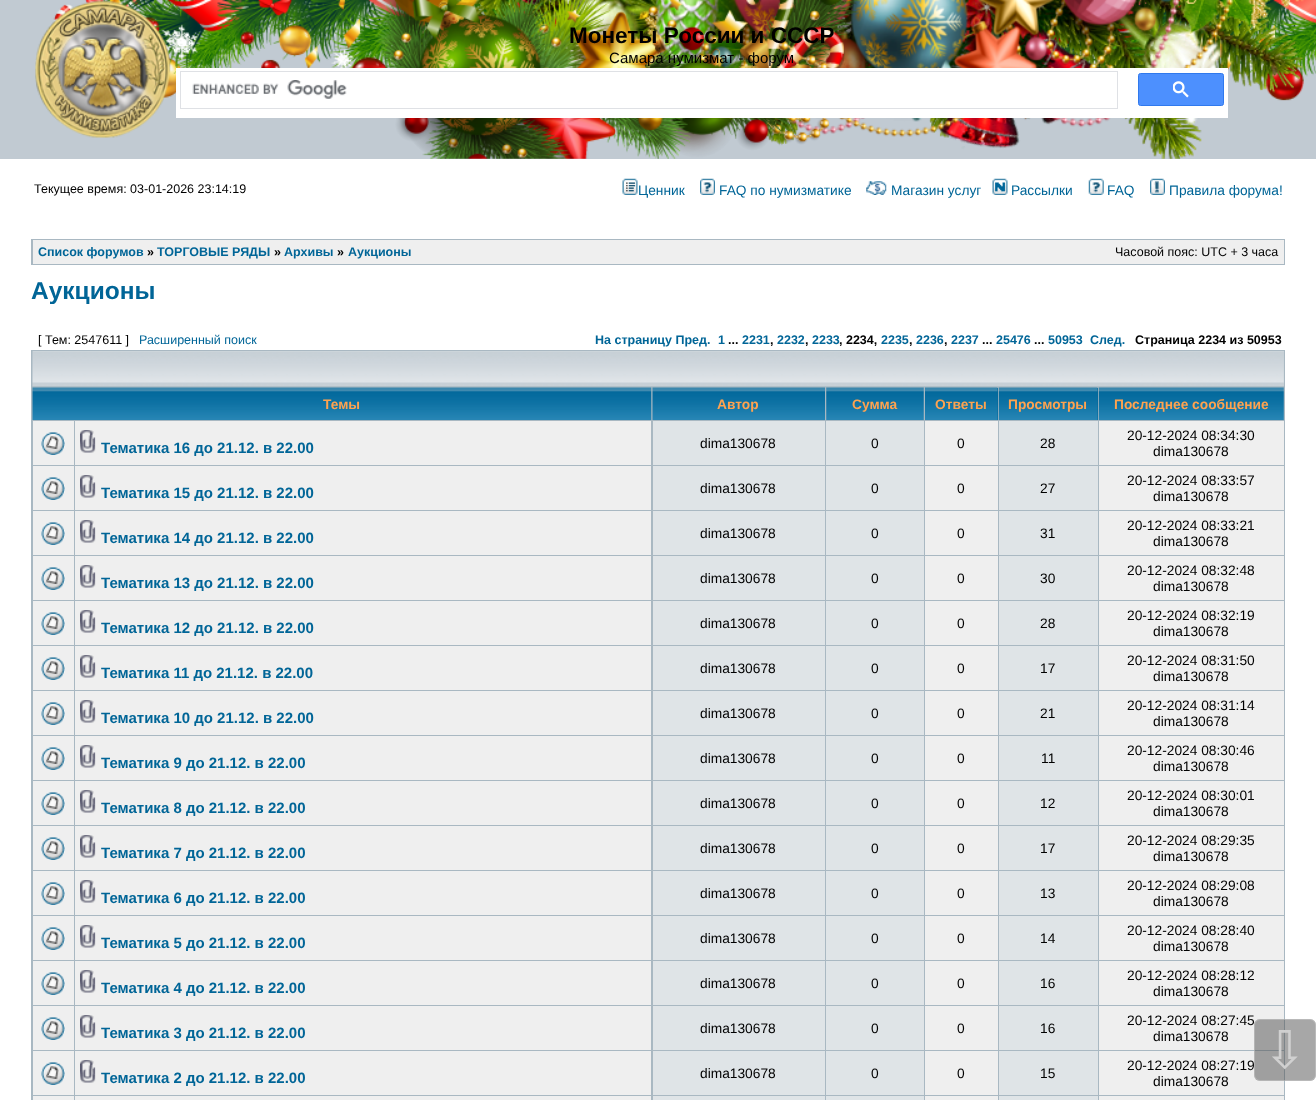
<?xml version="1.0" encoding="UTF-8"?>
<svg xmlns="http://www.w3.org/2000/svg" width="1316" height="1100">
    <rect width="100%" height="100%" fill="#FFFFFF"/>
    <rect x="0" y="0" width="1316" height="159" fill="#C1CAD2"/>
    <image x="53" y="0" width="1263" height="159" href="img_01.png"/>
    <image x="35" y="0" width="136" height="138" href="img_02.png"/>
    <text x="569" y="43" font-family="Liberation Sans" font-size="22.5" font-weight="700" fill="#000000">Монеты России и СССР</text>
    <text x="609" y="63" font-family="Liberation Sans" font-size="15" fill="#000000">Самара нумизмат - форум</text>
    <rect x="176" y="68" width="1052" height="50" fill="#FFFFFF"/>
    <rect x="180.5" y="71.5" width="937" height="37" fill="none" stroke="#DFE1E5"/>
    <image x="192" y="80" width="155" height="19" href="img_03.png"/>
    <rect x="1138.5" y="73.5" width="85" height="32" rx="2" fill="#4D90FE" stroke="#3079ED"/>
    <image x="1173" y="81" width="16" height="17" href="img_04.png"/>
    <text x="34" y="193" font-family="Liberation Sans" font-size="12.5" fill="#000000">Текущее время: 03-01-2026 23:14:19</text>
    <image x="622" y="178" width="16" height="17" href="img_05.png"/>
    <text x="638" y="195" font-family="Liberation Sans" font-size="13.75" fill="#006597">Ценник</text>
    <image x="700" y="178" width="15" height="17" href="img_06.png"/>
    <text x="719" y="195" font-family="Liberation Sans" font-size="13.75" fill="#006597">FAQ по нумизматике</text>
    <image x="866" y="181" width="21" height="14" href="img_07.png"/>
    <text x="891" y="195" font-family="Liberation Sans" font-size="13.75" fill="#006597">Магазин услуг</text>
    <image x="992" y="178" width="16" height="17" href="img_08.png"/>
    <text x="1011" y="195" font-family="Liberation Sans" font-size="13.75" fill="#006597">Рассылки</text>
    <image x="1088" y="178" width="16" height="17" href="img_09.png"/>
    <text x="1107" y="195" font-family="Liberation Sans" font-size="13.75" fill="#006597">FAQ</text>
    <image x="1150" y="178" width="15" height="17" href="img_10.png"/>
    <text x="1169" y="195" font-family="Liberation Sans" font-size="13.75" fill="#006597">Правила форума!</text>
    <rect x="31" y="239" width="1254" height="26" fill="#A9B8C2"/>
    <rect x="33" y="240" width="1251" height="24" fill="#EFEFEF"/>
    <text x="38" y="256" font-family="Liberation Sans" font-size="12.5" font-weight="700" fill="#006597">Список форумов</text>
    <text x="147" y="256" font-family="Liberation Sans" font-size="12.5" font-weight="700" fill="#000000">»</text>
    <text x="157" y="256" font-family="Liberation Sans" font-size="12.5" font-weight="700" fill="#006597">ТОРГОВЫЕ РЯДЫ</text>
    <text x="274" y="256" font-family="Liberation Sans" font-size="12.5" font-weight="700" fill="#000000">»</text>
    <text x="284" y="256" font-family="Liberation Sans" font-size="12.5" font-weight="700" fill="#006597">Архивы</text>
    <text x="337" y="256" font-family="Liberation Sans" font-size="12.5" font-weight="700" fill="#000000">»</text>
    <text x="348" y="256" font-family="Liberation Sans" font-size="12.5" font-weight="700" fill="#006597">Аукционы</text>
    <text x="1115" y="256" font-family="Liberation Sans" font-size="12.5" fill="#000000">Часовой пояс: UTC + 3 часа</text>
    <text x="31" y="299" font-family="Liberation Sans" font-size="24.5" font-weight="700" fill="#006597">Аукционы</text>
    <text x="38" y="344" font-family="Liberation Sans" font-size="12.5" fill="#000000">[ Тем: 2547611 ]</text>
    <text x="139" y="344" font-family="Liberation Sans" font-size="12.5" fill="#006597">Расширенный поиск</text>
    <text x="595" y="344" font-family="Liberation Sans" font-size="12.5" font-weight="700" fill="#006597">На страницу Пред.</text>
    <text x="718" y="344" font-family="Liberation Sans" font-size="12.5" font-weight="700" fill="#006597">1</text>
    <text x="728" y="344" font-family="Liberation Sans" font-size="12.5" font-weight="700" fill="#000000">...</text>
    <text x="742" y="344" font-family="Liberation Sans" font-size="12.5" font-weight="700" fill="#006597">2231</text>
    <text x="770" y="344" font-family="Liberation Sans" font-size="12.5" font-weight="700" fill="#000000">,</text>
    <text x="777" y="344" font-family="Liberation Sans" font-size="12.5" font-weight="700" fill="#006597">2232</text>
    <text x="805" y="344" font-family="Liberation Sans" font-size="12.5" font-weight="700" fill="#000000">,</text>
    <text x="812" y="344" font-family="Liberation Sans" font-size="12.5" font-weight="700" fill="#006597">2233</text>
    <text x="839" y="344" font-family="Liberation Sans" font-size="12.5" font-weight="700" fill="#000000">, 2234,</text>
    <text x="881" y="344" font-family="Liberation Sans" font-size="12.5" font-weight="700" fill="#006597">2235</text>
    <text x="909" y="344" font-family="Liberation Sans" font-size="12.5" font-weight="700" fill="#000000">,</text>
    <text x="916" y="344" font-family="Liberation Sans" font-size="12.5" font-weight="700" fill="#006597">2236</text>
    <text x="944" y="344" font-family="Liberation Sans" font-size="12.5" font-weight="700" fill="#000000">,</text>
    <text x="951" y="344" font-family="Liberation Sans" font-size="12.5" font-weight="700" fill="#006597">2237</text>
    <text x="982" y="344" font-family="Liberation Sans" font-size="12.5" font-weight="700" fill="#000000">...</text>
    <text x="996" y="344" font-family="Liberation Sans" font-size="12.5" font-weight="700" fill="#006597">25476</text>
    <text x="1034" y="344" font-family="Liberation Sans" font-size="12.5" font-weight="700" fill="#000000">...</text>
    <text x="1048" y="344" font-family="Liberation Sans" font-size="12.5" font-weight="700" fill="#006597">50953</text>
    <text x="1090" y="344" font-family="Liberation Sans" font-size="12.5" font-weight="700" fill="#006597">След.</text>
    <text x="1135" y="344" font-family="Liberation Sans" font-size="12.5" font-weight="700" fill="#000000">Страница 2234 из 50953</text>
    <rect x="31" y="350" width="1254" height="750" fill="#A9B8C2"/>
    <rect x="33" y="351" width="1251" height="35" fill="#C7D0D7"/>
    <image x="32" y="351" width="1252" height="36" href="img_11.png"/>
    <image x="32" y="387" width="620" height="33" href="img_12.png"/>
    <text x="323" y="409" font-family="Liberation Sans" font-size="13.75" font-weight="700" fill="#FFA34F">Темы</text>
    <image x="652" y="387" width="173" height="33" href="img_13.png"/>
    <text x="717" y="409" font-family="Liberation Sans" font-size="13.75" font-weight="700" fill="#FFA34F">Автор</text>
    <image x="826" y="387" width="98" height="33" href="img_14.png"/>
    <text x="852" y="409" font-family="Liberation Sans" font-size="13.75" font-weight="700" fill="#FFA34F">Сумма</text>
    <rect x="997" y="388" width="1" height="32" fill="#006699"/>
    <image x="925" y="387" width="73" height="33" href="img_15.png"/>
    <text x="935" y="409" font-family="Liberation Sans" font-size="13.75" font-weight="700" fill="#FFA34F">Ответы</text>
    <rect x="1097" y="388" width="1" height="32" fill="#006699"/>
    <image x="998" y="387" width="100" height="33" href="img_16.png"/>
    <text x="1008" y="409" font-family="Liberation Sans" font-size="13.75" font-weight="700" fill="#FFA34F">Просмотры</text>
    <image x="1098" y="387" width="186" height="33" href="img_17.png"/>
    <text x="1114" y="409" font-family="Liberation Sans" font-size="13.75" font-weight="700" fill="#FFA34F">Последнее сообщение</text>
    <rect x="33" y="421" width="41" height="44" fill="#EFEFEF"/>
    <image x="41" y="432" width="24" height="23" href="img_18.png"/>
    <rect x="75" y="421" width="576" height="44" fill="#EFEFEF"/>
    <image x="80" y="430" width="16" height="23" href="img_19.png"/>
    <text x="101" y="453" font-family="Liberation Sans" font-size="15" font-weight="700" fill="#006597">Тематика 16 до 21.12. в 22.00</text>
    <rect x="653" y="421" width="172" height="44" fill="#DFE4E7"/>
    <text x="700" y="448" font-family="Liberation Sans" font-size="13.75" fill="#000000">dima130678</text>
    <rect x="826" y="421" width="98" height="44" fill="#DFE4E7"/>
    <text x="871" y="448" font-family="Liberation Sans" font-size="13.75" fill="#000000">0</text>
    <rect x="925" y="421" width="73" height="44" fill="#EFEFEF"/>
    <text x="957" y="448" font-family="Liberation Sans" font-size="13.75" fill="#000000">0</text>
    <rect x="999" y="421" width="99" height="44" fill="#DFE4E7"/>
    <text x="1040" y="448" font-family="Liberation Sans" font-size="13.75" fill="#000000">28</text>
    <rect x="1099" y="421" width="185" height="44" fill="#EFEFEF"/>
    <text x="1127" y="440" font-family="Liberation Sans" font-size="13.75" fill="#000000">20-12-2024 08:34:30</text>
    <text x="1153" y="456" font-family="Liberation Sans" font-size="13.75" fill="#000000">dima130678</text>
    <rect x="33" y="466" width="41" height="44" fill="#EFEFEF"/>
    <image x="41" y="477" width="24" height="23" href="img_18.png"/>
    <rect x="75" y="466" width="576" height="44" fill="#EFEFEF"/>
    <image x="80" y="475" width="16" height="23" href="img_19.png"/>
    <text x="101" y="498" font-family="Liberation Sans" font-size="15" font-weight="700" fill="#006597">Тематика 15 до 21.12. в 22.00</text>
    <rect x="653" y="466" width="172" height="44" fill="#DFE4E7"/>
    <text x="700" y="493" font-family="Liberation Sans" font-size="13.75" fill="#000000">dima130678</text>
    <rect x="826" y="466" width="98" height="44" fill="#DFE4E7"/>
    <text x="871" y="493" font-family="Liberation Sans" font-size="13.75" fill="#000000">0</text>
    <rect x="925" y="466" width="73" height="44" fill="#EFEFEF"/>
    <text x="957" y="493" font-family="Liberation Sans" font-size="13.75" fill="#000000">0</text>
    <rect x="999" y="466" width="99" height="44" fill="#DFE4E7"/>
    <text x="1040" y="493" font-family="Liberation Sans" font-size="13.75" fill="#000000">27</text>
    <rect x="1099" y="466" width="185" height="44" fill="#EFEFEF"/>
    <text x="1127" y="485" font-family="Liberation Sans" font-size="13.75" fill="#000000">20-12-2024 08:33:57</text>
    <text x="1153" y="501" font-family="Liberation Sans" font-size="13.75" fill="#000000">dima130678</text>
    <rect x="33" y="511" width="41" height="44" fill="#EFEFEF"/>
    <image x="41" y="522" width="24" height="23" href="img_18.png"/>
    <rect x="75" y="511" width="576" height="44" fill="#EFEFEF"/>
    <image x="80" y="520" width="16" height="23" href="img_19.png"/>
    <text x="101" y="543" font-family="Liberation Sans" font-size="15" font-weight="700" fill="#006597">Тематика 14 до 21.12. в 22.00</text>
    <rect x="653" y="511" width="172" height="44" fill="#DFE4E7"/>
    <text x="700" y="538" font-family="Liberation Sans" font-size="13.75" fill="#000000">dima130678</text>
    <rect x="826" y="511" width="98" height="44" fill="#DFE4E7"/>
    <text x="871" y="538" font-family="Liberation Sans" font-size="13.75" fill="#000000">0</text>
    <rect x="925" y="511" width="73" height="44" fill="#EFEFEF"/>
    <text x="957" y="538" font-family="Liberation Sans" font-size="13.75" fill="#000000">0</text>
    <rect x="999" y="511" width="99" height="44" fill="#DFE4E7"/>
    <text x="1040" y="538" font-family="Liberation Sans" font-size="13.75" fill="#000000">31</text>
    <rect x="1099" y="511" width="185" height="44" fill="#EFEFEF"/>
    <text x="1127" y="530" font-family="Liberation Sans" font-size="13.75" fill="#000000">20-12-2024 08:33:21</text>
    <text x="1153" y="546" font-family="Liberation Sans" font-size="13.75" fill="#000000">dima130678</text>
    <rect x="33" y="556" width="41" height="44" fill="#EFEFEF"/>
    <image x="41" y="567" width="24" height="23" href="img_18.png"/>
    <rect x="75" y="556" width="576" height="44" fill="#EFEFEF"/>
    <image x="80" y="565" width="16" height="23" href="img_19.png"/>
    <text x="101" y="588" font-family="Liberation Sans" font-size="15" font-weight="700" fill="#006597">Тематика 13 до 21.12. в 22.00</text>
    <rect x="653" y="556" width="172" height="44" fill="#DFE4E7"/>
    <text x="700" y="583" font-family="Liberation Sans" font-size="13.75" fill="#000000">dima130678</text>
    <rect x="826" y="556" width="98" height="44" fill="#DFE4E7"/>
    <text x="871" y="583" font-family="Liberation Sans" font-size="13.75" fill="#000000">0</text>
    <rect x="925" y="556" width="73" height="44" fill="#EFEFEF"/>
    <text x="957" y="583" font-family="Liberation Sans" font-size="13.75" fill="#000000">0</text>
    <rect x="999" y="556" width="99" height="44" fill="#DFE4E7"/>
    <text x="1040" y="583" font-family="Liberation Sans" font-size="13.75" fill="#000000">30</text>
    <rect x="1099" y="556" width="185" height="44" fill="#EFEFEF"/>
    <text x="1127" y="575" font-family="Liberation Sans" font-size="13.75" fill="#000000">20-12-2024 08:32:48</text>
    <text x="1153" y="591" font-family="Liberation Sans" font-size="13.75" fill="#000000">dima130678</text>
    <rect x="33" y="601" width="41" height="44" fill="#EFEFEF"/>
    <image x="41" y="612" width="24" height="23" href="img_18.png"/>
    <rect x="75" y="601" width="576" height="44" fill="#EFEFEF"/>
    <image x="80" y="610" width="16" height="23" href="img_19.png"/>
    <text x="101" y="633" font-family="Liberation Sans" font-size="15" font-weight="700" fill="#006597">Тематика 12 до 21.12. в 22.00</text>
    <rect x="653" y="601" width="172" height="44" fill="#DFE4E7"/>
    <text x="700" y="628" font-family="Liberation Sans" font-size="13.75" fill="#000000">dima130678</text>
    <rect x="826" y="601" width="98" height="44" fill="#DFE4E7"/>
    <text x="871" y="628" font-family="Liberation Sans" font-size="13.75" fill="#000000">0</text>
    <rect x="925" y="601" width="73" height="44" fill="#EFEFEF"/>
    <text x="957" y="628" font-family="Liberation Sans" font-size="13.75" fill="#000000">0</text>
    <rect x="999" y="601" width="99" height="44" fill="#DFE4E7"/>
    <text x="1040" y="628" font-family="Liberation Sans" font-size="13.75" fill="#000000">28</text>
    <rect x="1099" y="601" width="185" height="44" fill="#EFEFEF"/>
    <text x="1127" y="620" font-family="Liberation Sans" font-size="13.75" fill="#000000">20-12-2024 08:32:19</text>
    <text x="1153" y="636" font-family="Liberation Sans" font-size="13.75" fill="#000000">dima130678</text>
    <rect x="33" y="646" width="41" height="44" fill="#EFEFEF"/>
    <image x="41" y="657" width="24" height="23" href="img_18.png"/>
    <rect x="75" y="646" width="576" height="44" fill="#EFEFEF"/>
    <image x="80" y="655" width="16" height="23" href="img_19.png"/>
    <text x="101" y="678" font-family="Liberation Sans" font-size="15" font-weight="700" fill="#006597">Тематика 11 до 21.12. в 22.00</text>
    <rect x="653" y="646" width="172" height="44" fill="#DFE4E7"/>
    <text x="700" y="673" font-family="Liberation Sans" font-size="13.75" fill="#000000">dima130678</text>
    <rect x="826" y="646" width="98" height="44" fill="#DFE4E7"/>
    <text x="871" y="673" font-family="Liberation Sans" font-size="13.75" fill="#000000">0</text>
    <rect x="925" y="646" width="73" height="44" fill="#EFEFEF"/>
    <text x="957" y="673" font-family="Liberation Sans" font-size="13.75" fill="#000000">0</text>
    <rect x="999" y="646" width="99" height="44" fill="#DFE4E7"/>
    <text x="1040" y="673" font-family="Liberation Sans" font-size="13.75" fill="#000000">17</text>
    <rect x="1099" y="646" width="185" height="44" fill="#EFEFEF"/>
    <text x="1127" y="665" font-family="Liberation Sans" font-size="13.75" fill="#000000">20-12-2024 08:31:50</text>
    <text x="1153" y="681" font-family="Liberation Sans" font-size="13.75" fill="#000000">dima130678</text>
    <rect x="33" y="691" width="41" height="44" fill="#EFEFEF"/>
    <image x="41" y="702" width="24" height="23" href="img_18.png"/>
    <rect x="75" y="691" width="576" height="44" fill="#EFEFEF"/>
    <image x="80" y="700" width="16" height="23" href="img_19.png"/>
    <text x="101" y="723" font-family="Liberation Sans" font-size="15" font-weight="700" fill="#006597">Тематика 10 до 21.12. в 22.00</text>
    <rect x="653" y="691" width="172" height="44" fill="#DFE4E7"/>
    <text x="700" y="718" font-family="Liberation Sans" font-size="13.75" fill="#000000">dima130678</text>
    <rect x="826" y="691" width="98" height="44" fill="#DFE4E7"/>
    <text x="871" y="718" font-family="Liberation Sans" font-size="13.75" fill="#000000">0</text>
    <rect x="925" y="691" width="73" height="44" fill="#EFEFEF"/>
    <text x="957" y="718" font-family="Liberation Sans" font-size="13.75" fill="#000000">0</text>
    <rect x="999" y="691" width="99" height="44" fill="#DFE4E7"/>
    <text x="1040" y="718" font-family="Liberation Sans" font-size="13.75" fill="#000000">21</text>
    <rect x="1099" y="691" width="185" height="44" fill="#EFEFEF"/>
    <text x="1127" y="710" font-family="Liberation Sans" font-size="13.75" fill="#000000">20-12-2024 08:31:14</text>
    <text x="1153" y="726" font-family="Liberation Sans" font-size="13.75" fill="#000000">dima130678</text>
    <rect x="33" y="736" width="41" height="44" fill="#EFEFEF"/>
    <image x="41" y="747" width="24" height="23" href="img_18.png"/>
    <rect x="75" y="736" width="576" height="44" fill="#EFEFEF"/>
    <image x="80" y="745" width="16" height="23" href="img_19.png"/>
    <text x="101" y="768" font-family="Liberation Sans" font-size="15" font-weight="700" fill="#006597">Тематика 9 до 21.12. в 22.00</text>
    <rect x="653" y="736" width="172" height="44" fill="#DFE4E7"/>
    <text x="700" y="763" font-family="Liberation Sans" font-size="13.75" fill="#000000">dima130678</text>
    <rect x="826" y="736" width="98" height="44" fill="#DFE4E7"/>
    <text x="871" y="763" font-family="Liberation Sans" font-size="13.75" fill="#000000">0</text>
    <rect x="925" y="736" width="73" height="44" fill="#EFEFEF"/>
    <text x="957" y="763" font-family="Liberation Sans" font-size="13.75" fill="#000000">0</text>
    <rect x="999" y="736" width="99" height="44" fill="#DFE4E7"/>
    <text x="1041" y="763" font-family="Liberation Sans" font-size="13.75" fill="#000000">11</text>
    <rect x="1099" y="736" width="185" height="44" fill="#EFEFEF"/>
    <text x="1127" y="755" font-family="Liberation Sans" font-size="13.75" fill="#000000">20-12-2024 08:30:46</text>
    <text x="1153" y="771" font-family="Liberation Sans" font-size="13.75" fill="#000000">dima130678</text>
    <rect x="33" y="781" width="41" height="44" fill="#EFEFEF"/>
    <image x="41" y="792" width="24" height="23" href="img_18.png"/>
    <rect x="75" y="781" width="576" height="44" fill="#EFEFEF"/>
    <image x="80" y="790" width="16" height="23" href="img_19.png"/>
    <text x="101" y="813" font-family="Liberation Sans" font-size="15" font-weight="700" fill="#006597">Тематика 8 до 21.12. в 22.00</text>
    <rect x="653" y="781" width="172" height="44" fill="#DFE4E7"/>
    <text x="700" y="808" font-family="Liberation Sans" font-size="13.75" fill="#000000">dima130678</text>
    <rect x="826" y="781" width="98" height="44" fill="#DFE4E7"/>
    <text x="871" y="808" font-family="Liberation Sans" font-size="13.75" fill="#000000">0</text>
    <rect x="925" y="781" width="73" height="44" fill="#EFEFEF"/>
    <text x="957" y="808" font-family="Liberation Sans" font-size="13.75" fill="#000000">0</text>
    <rect x="999" y="781" width="99" height="44" fill="#DFE4E7"/>
    <text x="1040" y="808" font-family="Liberation Sans" font-size="13.75" fill="#000000">12</text>
    <rect x="1099" y="781" width="185" height="44" fill="#EFEFEF"/>
    <text x="1127" y="800" font-family="Liberation Sans" font-size="13.75" fill="#000000">20-12-2024 08:30:01</text>
    <text x="1153" y="816" font-family="Liberation Sans" font-size="13.75" fill="#000000">dima130678</text>
    <rect x="33" y="826" width="41" height="44" fill="#EFEFEF"/>
    <image x="41" y="837" width="24" height="23" href="img_18.png"/>
    <rect x="75" y="826" width="576" height="44" fill="#EFEFEF"/>
    <image x="80" y="835" width="16" height="23" href="img_19.png"/>
    <text x="101" y="858" font-family="Liberation Sans" font-size="15" font-weight="700" fill="#006597">Тематика 7 до 21.12. в 22.00</text>
    <rect x="653" y="826" width="172" height="44" fill="#DFE4E7"/>
    <text x="700" y="853" font-family="Liberation Sans" font-size="13.75" fill="#000000">dima130678</text>
    <rect x="826" y="826" width="98" height="44" fill="#DFE4E7"/>
    <text x="871" y="853" font-family="Liberation Sans" font-size="13.75" fill="#000000">0</text>
    <rect x="925" y="826" width="73" height="44" fill="#EFEFEF"/>
    <text x="957" y="853" font-family="Liberation Sans" font-size="13.75" fill="#000000">0</text>
    <rect x="999" y="826" width="99" height="44" fill="#DFE4E7"/>
    <text x="1040" y="853" font-family="Liberation Sans" font-size="13.75" fill="#000000">17</text>
    <rect x="1099" y="826" width="185" height="44" fill="#EFEFEF"/>
    <text x="1127" y="845" font-family="Liberation Sans" font-size="13.75" fill="#000000">20-12-2024 08:29:35</text>
    <text x="1153" y="861" font-family="Liberation Sans" font-size="13.75" fill="#000000">dima130678</text>
    <rect x="33" y="871" width="41" height="44" fill="#EFEFEF"/>
    <image x="41" y="882" width="24" height="23" href="img_18.png"/>
    <rect x="75" y="871" width="576" height="44" fill="#EFEFEF"/>
    <image x="80" y="880" width="16" height="23" href="img_19.png"/>
    <text x="101" y="903" font-family="Liberation Sans" font-size="15" font-weight="700" fill="#006597">Тематика 6 до 21.12. в 22.00</text>
    <rect x="653" y="871" width="172" height="44" fill="#DFE4E7"/>
    <text x="700" y="898" font-family="Liberation Sans" font-size="13.75" fill="#000000">dima130678</text>
    <rect x="826" y="871" width="98" height="44" fill="#DFE4E7"/>
    <text x="871" y="898" font-family="Liberation Sans" font-size="13.75" fill="#000000">0</text>
    <rect x="925" y="871" width="73" height="44" fill="#EFEFEF"/>
    <text x="957" y="898" font-family="Liberation Sans" font-size="13.75" fill="#000000">0</text>
    <rect x="999" y="871" width="99" height="44" fill="#DFE4E7"/>
    <text x="1040" y="898" font-family="Liberation Sans" font-size="13.75" fill="#000000">13</text>
    <rect x="1099" y="871" width="185" height="44" fill="#EFEFEF"/>
    <text x="1127" y="890" font-family="Liberation Sans" font-size="13.75" fill="#000000">20-12-2024 08:29:08</text>
    <text x="1153" y="906" font-family="Liberation Sans" font-size="13.75" fill="#000000">dima130678</text>
    <rect x="33" y="916" width="41" height="44" fill="#EFEFEF"/>
    <image x="41" y="927" width="24" height="23" href="img_18.png"/>
    <rect x="75" y="916" width="576" height="44" fill="#EFEFEF"/>
    <image x="80" y="925" width="16" height="23" href="img_19.png"/>
    <text x="101" y="948" font-family="Liberation Sans" font-size="15" font-weight="700" fill="#006597">Тематика 5 до 21.12. в 22.00</text>
    <rect x="653" y="916" width="172" height="44" fill="#DFE4E7"/>
    <text x="700" y="943" font-family="Liberation Sans" font-size="13.75" fill="#000000">dima130678</text>
    <rect x="826" y="916" width="98" height="44" fill="#DFE4E7"/>
    <text x="871" y="943" font-family="Liberation Sans" font-size="13.75" fill="#000000">0</text>
    <rect x="925" y="916" width="73" height="44" fill="#EFEFEF"/>
    <text x="957" y="943" font-family="Liberation Sans" font-size="13.75" fill="#000000">0</text>
    <rect x="999" y="916" width="99" height="44" fill="#DFE4E7"/>
    <text x="1040" y="943" font-family="Liberation Sans" font-size="13.75" fill="#000000">14</text>
    <rect x="1099" y="916" width="185" height="44" fill="#EFEFEF"/>
    <text x="1127" y="935" font-family="Liberation Sans" font-size="13.75" fill="#000000">20-12-2024 08:28:40</text>
    <text x="1153" y="951" font-family="Liberation Sans" font-size="13.75" fill="#000000">dima130678</text>
    <rect x="33" y="961" width="41" height="44" fill="#EFEFEF"/>
    <image x="41" y="972" width="24" height="23" href="img_18.png"/>
    <rect x="75" y="961" width="576" height="44" fill="#EFEFEF"/>
    <image x="80" y="970" width="16" height="23" href="img_19.png"/>
    <text x="101" y="993" font-family="Liberation Sans" font-size="15" font-weight="700" fill="#006597">Тематика 4 до 21.12. в 22.00</text>
    <rect x="653" y="961" width="172" height="44" fill="#DFE4E7"/>
    <text x="700" y="988" font-family="Liberation Sans" font-size="13.75" fill="#000000">dima130678</text>
    <rect x="826" y="961" width="98" height="44" fill="#DFE4E7"/>
    <text x="871" y="988" font-family="Liberation Sans" font-size="13.75" fill="#000000">0</text>
    <rect x="925" y="961" width="73" height="44" fill="#EFEFEF"/>
    <text x="957" y="988" font-family="Liberation Sans" font-size="13.75" fill="#000000">0</text>
    <rect x="999" y="961" width="99" height="44" fill="#DFE4E7"/>
    <text x="1040" y="988" font-family="Liberation Sans" font-size="13.75" fill="#000000">16</text>
    <rect x="1099" y="961" width="185" height="44" fill="#EFEFEF"/>
    <text x="1127" y="980" font-family="Liberation Sans" font-size="13.75" fill="#000000">20-12-2024 08:28:12</text>
    <text x="1153" y="996" font-family="Liberation Sans" font-size="13.75" fill="#000000">dima130678</text>
    <rect x="33" y="1006" width="41" height="44" fill="#EFEFEF"/>
    <image x="41" y="1017" width="24" height="23" href="img_18.png"/>
    <rect x="75" y="1006" width="576" height="44" fill="#EFEFEF"/>
    <image x="80" y="1015" width="16" height="23" href="img_19.png"/>
    <text x="101" y="1038" font-family="Liberation Sans" font-size="15" font-weight="700" fill="#006597">Тематика 3 до 21.12. в 22.00</text>
    <rect x="653" y="1006" width="172" height="44" fill="#DFE4E7"/>
    <text x="700" y="1033" font-family="Liberation Sans" font-size="13.75" fill="#000000">dima130678</text>
    <rect x="826" y="1006" width="98" height="44" fill="#DFE4E7"/>
    <text x="871" y="1033" font-family="Liberation Sans" font-size="13.75" fill="#000000">0</text>
    <rect x="925" y="1006" width="73" height="44" fill="#EFEFEF"/>
    <text x="957" y="1033" font-family="Liberation Sans" font-size="13.75" fill="#000000">0</text>
    <rect x="999" y="1006" width="99" height="44" fill="#DFE4E7"/>
    <text x="1040" y="1033" font-family="Liberation Sans" font-size="13.75" fill="#000000">16</text>
    <rect x="1099" y="1006" width="185" height="44" fill="#EFEFEF"/>
    <text x="1127" y="1025" font-family="Liberation Sans" font-size="13.75" fill="#000000">20-12-2024 08:27:45</text>
    <text x="1153" y="1041" font-family="Liberation Sans" font-size="13.75" fill="#000000">dima130678</text>
    <rect x="33" y="1051" width="41" height="44" fill="#EFEFEF"/>
    <image x="41" y="1062" width="24" height="23" href="img_18.png"/>
    <rect x="75" y="1051" width="576" height="44" fill="#EFEFEF"/>
    <image x="80" y="1060" width="16" height="23" href="img_19.png"/>
    <text x="101" y="1083" font-family="Liberation Sans" font-size="15" font-weight="700" fill="#006597">Тематика 2 до 21.12. в 22.00</text>
    <rect x="653" y="1051" width="172" height="44" fill="#DFE4E7"/>
    <text x="700" y="1078" font-family="Liberation Sans" font-size="13.75" fill="#000000">dima130678</text>
    <rect x="826" y="1051" width="98" height="44" fill="#DFE4E7"/>
    <text x="871" y="1078" font-family="Liberation Sans" font-size="13.75" fill="#000000">0</text>
    <rect x="925" y="1051" width="73" height="44" fill="#EFEFEF"/>
    <text x="957" y="1078" font-family="Liberation Sans" font-size="13.75" fill="#000000">0</text>
    <rect x="999" y="1051" width="99" height="44" fill="#DFE4E7"/>
    <text x="1040" y="1078" font-family="Liberation Sans" font-size="13.75" fill="#000000">15</text>
    <rect x="1099" y="1051" width="185" height="44" fill="#EFEFEF"/>
    <text x="1127" y="1070" font-family="Liberation Sans" font-size="13.75" fill="#000000">20-12-2024 08:27:19</text>
    <text x="1153" y="1086" font-family="Liberation Sans" font-size="13.75" fill="#000000">dima130678</text>
    <rect x="33" y="1096" width="41" height="4" fill="#EFEFEF"/>
    <rect x="75" y="1096" width="576" height="4" fill="#EFEFEF"/>
    <rect x="653" y="1096" width="172" height="4" fill="#DFE4E7"/>
    <rect x="826" y="1096" width="98" height="4" fill="#DFE4E7"/>
    <rect x="925" y="1096" width="73" height="4" fill="#EFEFEF"/>
    <rect x="999" y="1096" width="99" height="4" fill="#DFE4E7"/>
    <rect x="1099" y="1096" width="185" height="4" fill="#EFEFEF"/>
    <rect x="1254" y="1019" width="62" height="62" rx="6" fill="#4F4F4F" fill-opacity="0.5"/>
    <rect x="1254.5" y="1019.5" width="61" height="61" rx="5.5" fill="none" stroke="#CCCCCC" stroke-opacity="0.5"/>
    <text x="1263" y="1068" font-family="DejaVu Sans" font-size="52" fill="#D0D0D0">⇩</text>
</svg>
